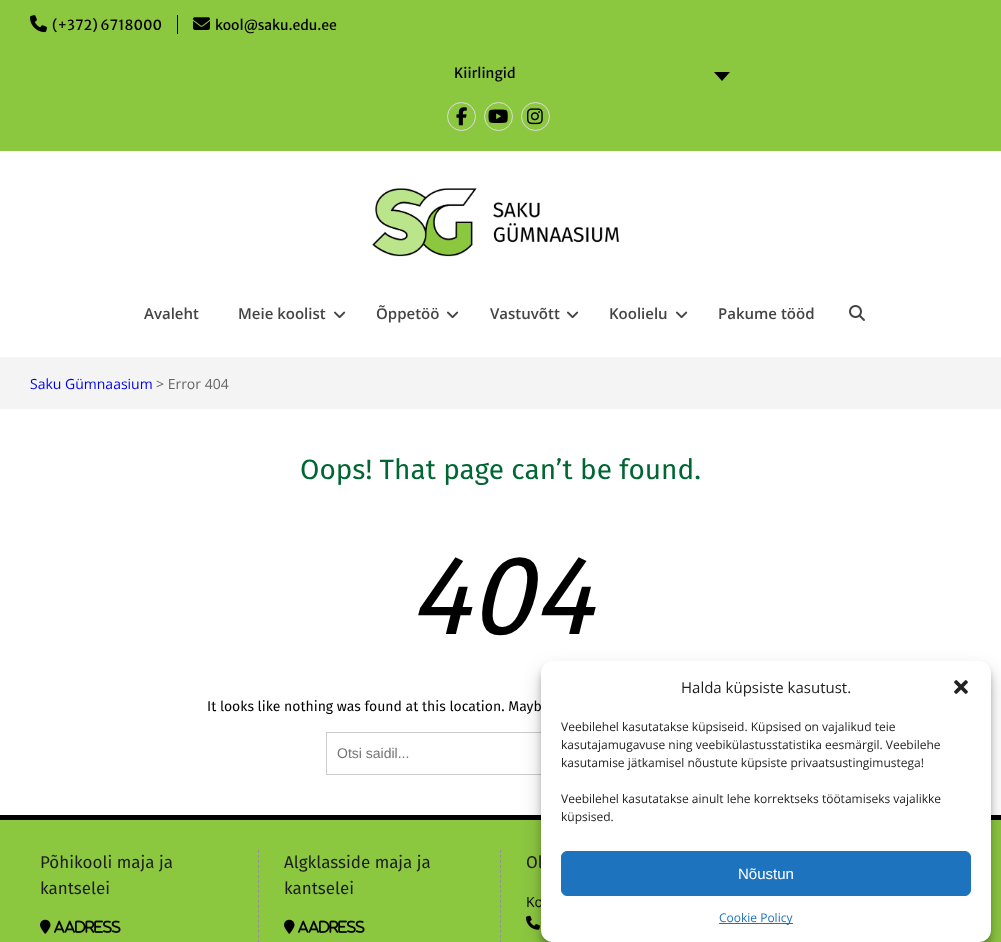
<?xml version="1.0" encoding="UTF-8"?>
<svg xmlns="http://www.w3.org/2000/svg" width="1001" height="942">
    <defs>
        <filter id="blur1" x="-50%" y="-200%" width="200%" height="500%"><feGaussianBlur stdDeviation="3"/></filter>
        <filter id="blur2" x="-50%" y="-200%" width="200%" height="500%"><feGaussianBlur stdDeviation="10"/></filter>
    </defs>
    <rect width="100%" height="100%" fill="#FFFFFF"/>
    <rect x="0" y="0" width="1001" height="151" fill="#8CC740"/>
    <image x="30" y="15" width="17" height="18" href="img_01.png"/>
    <text x="52" y="30" font-family="Merriweather Sans" font-size="14" fill="#000000">(+372) 6718000</text>
    <rect x="177" y="15" width="1" height="19" fill="#000000"/>
    <image x="193" y="17" width="17" height="13" href="img_02.png"/>
    <text x="215" y="30" font-family="Merriweather Sans" font-size="14" fill="#000000">kool@saku.edu.ee</text>
    <text x="454" y="78" font-family="Merriweather Sans" font-size="14" fill="#000000">Kiirlingid</text>
    <path d="M 714 72 H 730 L 722 81 Z" fill="#000000"/>
    <circle cx="461.5" cy="116.5" r="14" fill="none" stroke="#DDDDDD"/>
    <image x="456" y="107" width="11" height="19" href="img_03.png"/>
    <circle cx="498.5" cy="116.5" r="14" fill="none" stroke="#DDDDDD"/>
    <image x="488" y="109" width="20" height="14" href="img_04.png"/>
    <circle cx="535.5" cy="116.5" r="14" fill="none" stroke="#DDDDDD"/>
    <image x="527" y="108" width="16" height="17" href="img_05.png"/>
    <rect x="0" y="357" width="1001" height="52" fill="#F4F4F4"/>
    <image x="372" y="188" width="247" height="69" href="img_06.png"/>
    <text x="144" y="319" font-family="Open Sans" font-size="15" font-weight="600" fill="#444444">Avaleht</text>
    <text x="238" y="319" font-family="Open Sans" font-size="15" font-weight="600" fill="#444444">Meie koolist</text>
    <image x="334" y="311" width="12" height="8" href="img_07.png"/>
    <text x="376" y="319" font-family="Open Sans" font-size="15" font-weight="600" fill="#444444">Õppetöö</text>
    <image x="447" y="311" width="12" height="8" href="img_07.png"/>
    <text x="490" y="319" font-family="Open Sans" font-size="15" font-weight="600" fill="#444444">Vastuvõtt</text>
    <image x="567" y="311" width="12" height="8" href="img_07.png"/>
    <text x="609" y="319" font-family="Open Sans" font-size="15" font-weight="600" fill="#444444">Koolielu</text>
    <image x="676" y="311" width="12" height="8" href="img_07.png"/>
    <text x="718" y="319" font-family="Open Sans" font-size="15" font-weight="600" fill="#444444">Pakume tööd</text>
    <image x="849" y="305" width="16" height="16" href="img_08.png"/>
    <text x="30" y="389" font-family="Open Sans" font-size="14" fill="#0000EE">Saku Gümnaasium</text>
    <text x="156" y="389" font-family="Open Sans" font-size="14" fill="#666666">&gt; Error 404</text>
    <text x="300" y="479" font-family="Fira Sans" font-size="28" fill="#006633">Oops! That page can’t be found.</text>
    <text x="409" y="634" font-family="Fira Sans" font-size="113" font-style="italic" fill="#000000">404</text>
    <text x="207" y="711" font-family="Fira Sans" font-size="14" fill="#000000">It looks like nothing was found at this location. Mayb</text>
    <rect x="326.5" y="732.5" width="349" height="42" fill="none" stroke="#CCCCCC"/>
    <text x="337" y="758" font-family="Liberation Sans" font-size="14" fill="#757575">Otsi saidil...</text>
    <rect x="0" y="820" width="1001" height="122" fill="#8CC740"/>
    <rect x="0" y="815" width="1001" height="5" fill="#000000"/>
    <text font-family="Fira Sans" font-size="17" fill="#1D1D1D">
        <tspan x="40" y="868">Põhikooli maja ja</tspan>
        <tspan x="40" y="894">kantselei</tspan>
    </text>
    <image x="40" y="919" width="11" height="15" href="img_09.png"/>
    <image x="54" y="920" width="67" height="13" href="img_10.png"/>
    <path d="M 258.5 850 V 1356" fill="none" stroke="#939393" stroke-dasharray="3 1.98"/>
    <text font-family="Fira Sans" font-size="17" fill="#1D1D1D">
        <tspan x="284" y="868">Algklasside maja ja</tspan>
        <tspan x="284" y="894">kantselei</tspan>
    </text>
    <image x="284" y="919" width="11" height="15" href="img_09.png"/>
    <image x="298" y="920" width="67" height="13" href="img_10.png"/>
    <path d="M 500.5 850 V 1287" fill="none" stroke="#939393" stroke-dasharray="3 1.99"/>
    <text x="526" y="868" font-family="Fira Sans" font-size="17" fill="#1D1D1D">Ol</text>
    <text x="526" y="907" font-family="Open Sans" font-size="14" fill="#000000">Ko</text>
    <image x="526" y="915" width="14" height="15" href="img_11.png"/>
    <rect x="541" y="667" width="450" height="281" rx="12" fill="#000000" fill-opacity="0.23" filter="url(#blur1)"/>
    <rect x="541" y="671" width="450" height="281" rx="12" fill="#000000" fill-opacity="0.19" filter="url(#blur2)"/>
    <rect x="541" y="661" width="450" height="281" rx="12" fill="#FFFFFF"/>
    <text x="681" y="693" font-family="Open Sans" font-size="15" fill="#1D1D1D">Halda küpsiste kasutust.</text>
    <image x="954" y="680" width="14" height="14" href="img_12.png"/>
    <text font-family="Open Sans" font-size="12" fill="#1D1D1D">
        <tspan x="561" y="731">Veebilehel kasutatakse küpsiseid. Küpsised on vajalikud teie</tspan>
        <tspan x="561" y="749">kasutajamugavuse ning veebikülastusstatistika eesmärgil. Veebilehe</tspan>
        <tspan x="561" y="767">kasutamise jätkamisel nõustute küpsiste privaatsustingimustega!</tspan>
    </text>
    <text font-family="Open Sans" font-size="12" fill="#1D1D1D">
        <tspan x="561" y="803">Veebilehel kasutatakse ainult lehe korrektseks töötamiseks vajalikke</tspan>
        <tspan x="561" y="821">küpsised.</tspan>
    </text>
    <rect x="561.5" y="851.5" width="409" height="44" rx="5.5" fill="#1E73BE" stroke="#1E73BE"/>
    <text x="738" y="879" font-family="Liberation Sans" font-size="15" fill="#FFFFFF">Nõustun</text>
    <rect x="719" y="923" width="74" height="1" fill="#1E73BE"/>
    <text x="719" y="922" font-family="Open Sans" font-size="12" fill="#1E73BE">Cookie Policy</text>
</svg>
